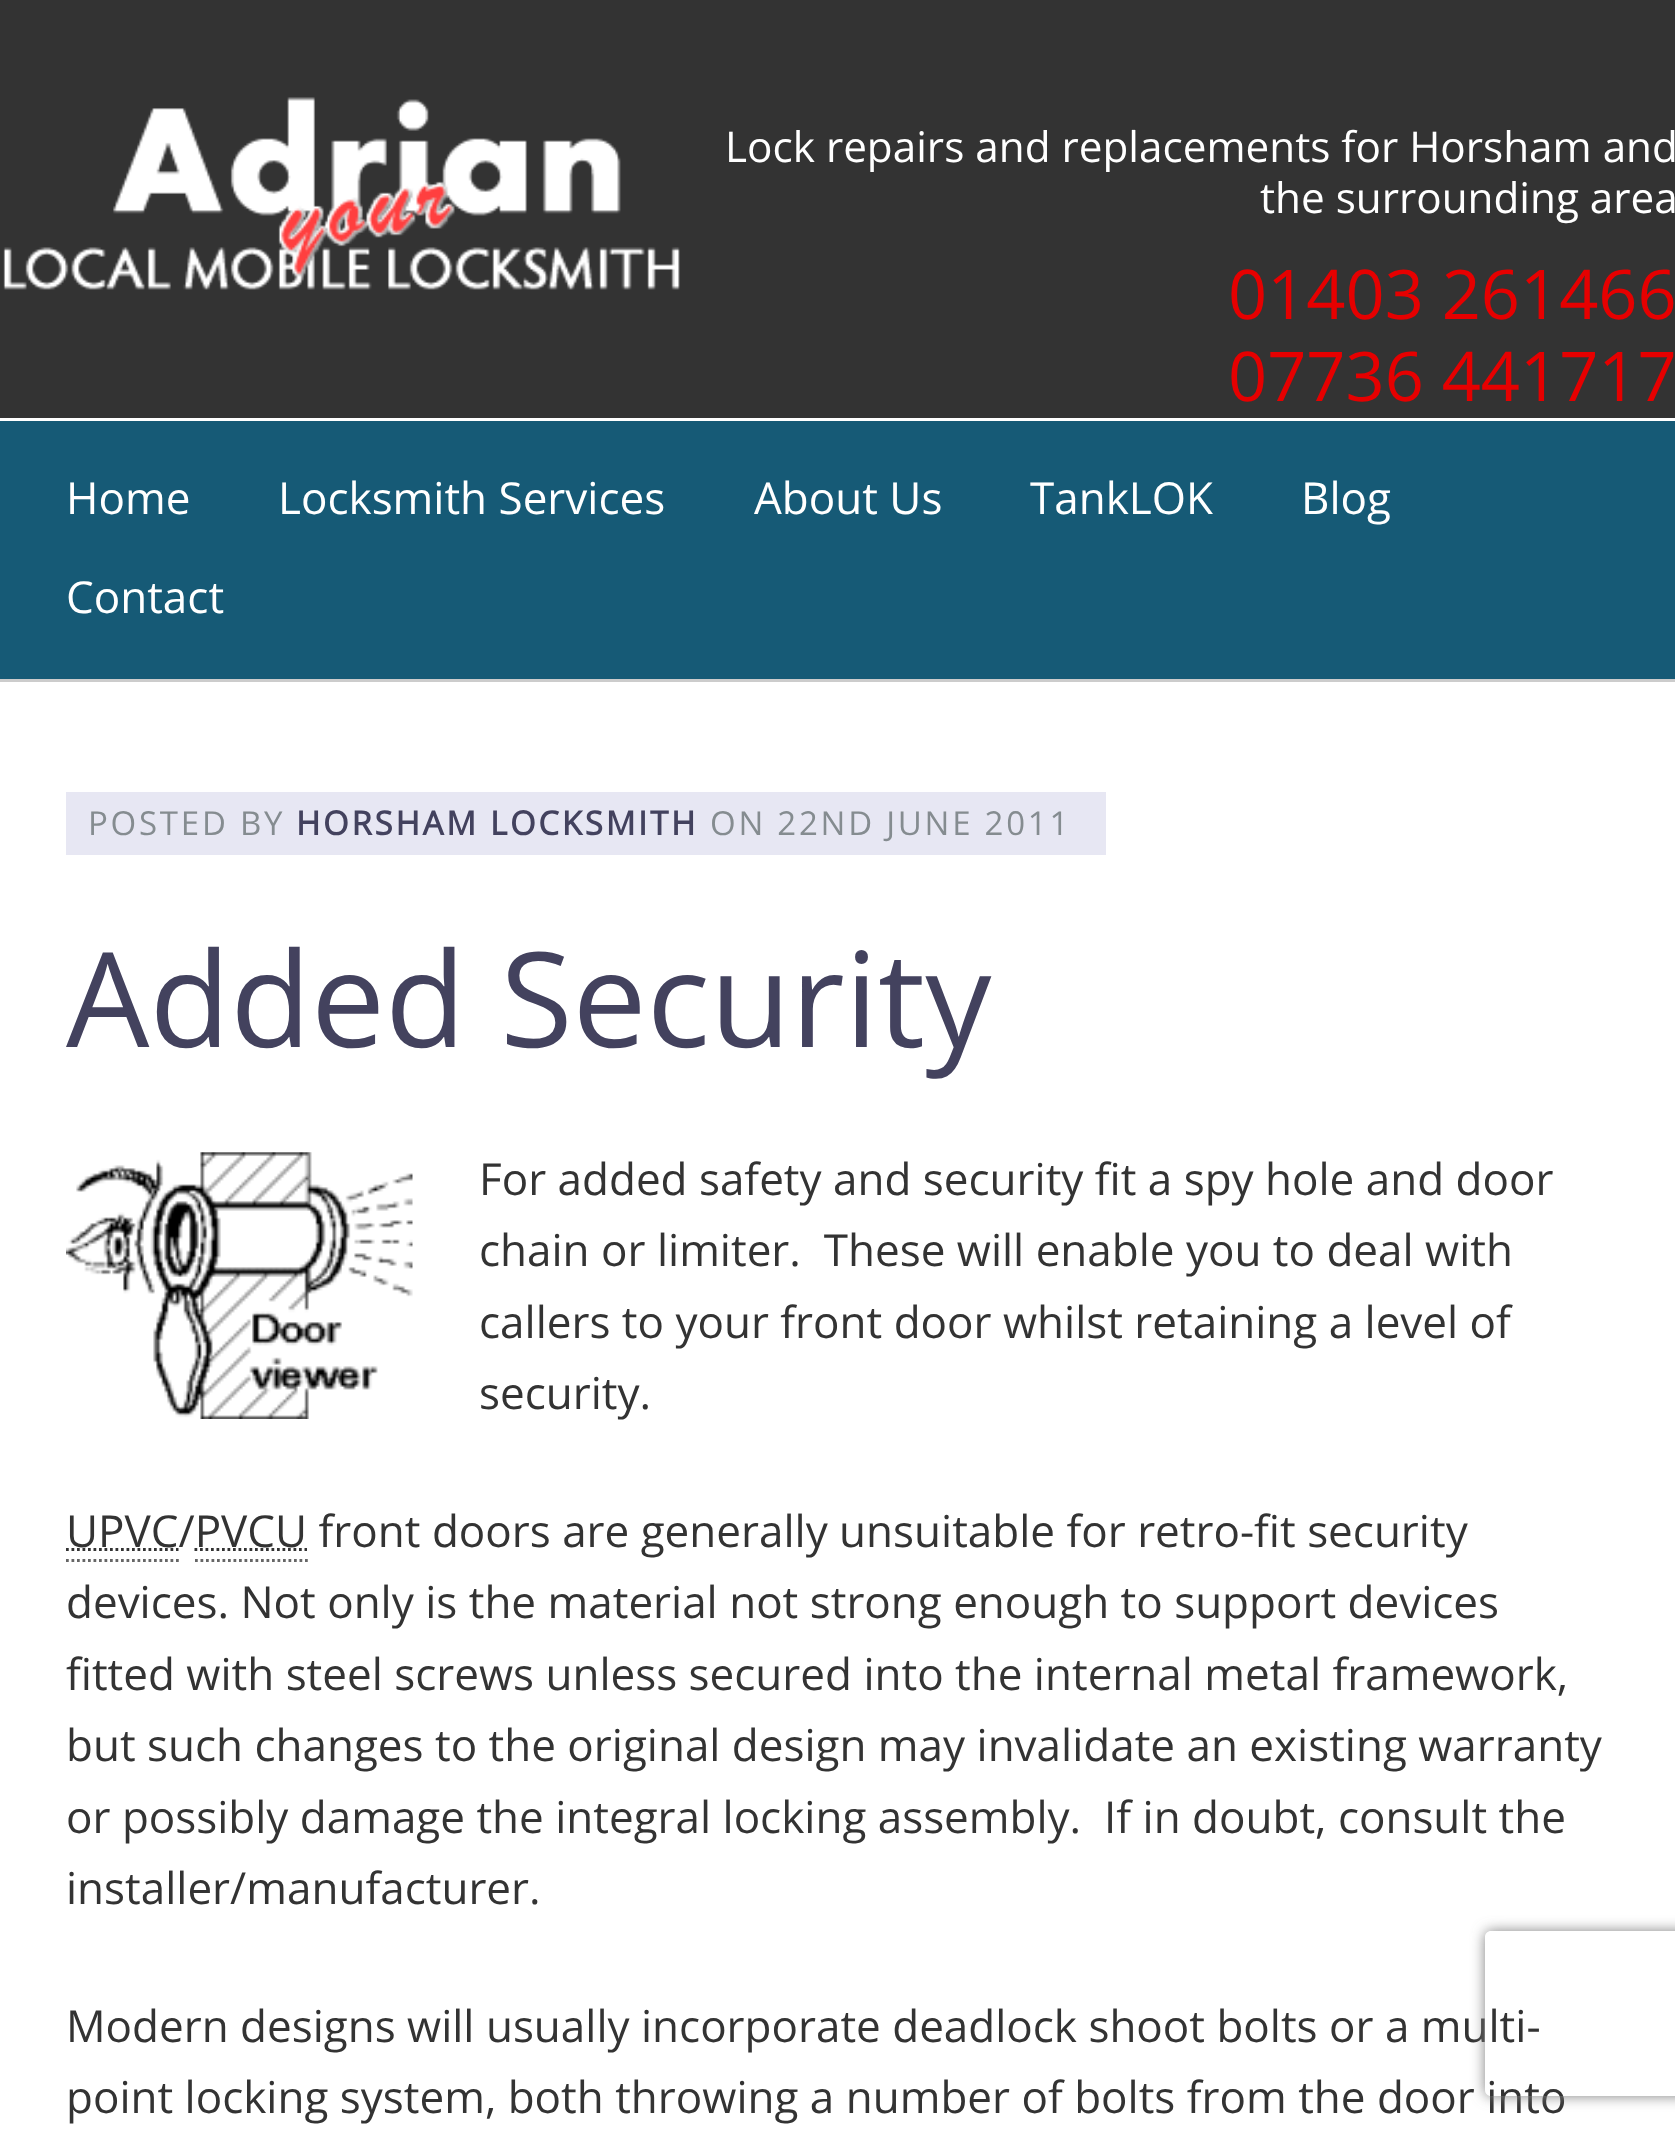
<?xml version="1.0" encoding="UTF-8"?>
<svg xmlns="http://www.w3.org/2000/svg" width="1675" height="2134">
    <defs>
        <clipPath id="clip1"><path d="M 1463 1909 H 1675 V 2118 H 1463 Z M 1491 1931 H 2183 C 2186.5 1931 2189 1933.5 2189 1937 V 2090 C 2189 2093.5 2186.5 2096 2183 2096 H 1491 C 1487.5 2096 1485 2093.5 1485 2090 V 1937 C 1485 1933.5 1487.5 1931 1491 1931 Z" clip-rule="evenodd"/></clipPath>
        <filter id="blur1" x="-50%" y="-200%" width="200%" height="500%"><feGaussianBlur stdDeviation="7"/></filter>
    </defs>
    <rect width="100%" height="100%" fill="#FFFFFF"/>
    <rect x="0" y="0" width="1675" height="418" fill="#333333"/>
    <image x="3" y="97" width="677" height="193" href="img_01.png"/>
    <text x="725" y="162" font-family="Open Sans" font-size="42.25" fill="#FFFFFF">Lock repairs and replacements for Horsham and</text>
    <text x="1260" y="213" font-family="Open Sans" font-size="42.25" fill="#FFFFFF">the surrounding area</text>
    <text font-family="Open Sans" font-size="68.5" fill="#E60000">
        <tspan x="1228" y="319">01403 261466</tspan>
        <tspan x="1228" y="401">07736 441717</tspan>
    </text>
    <rect x="0" y="421" width="1675" height="258" fill="#165A76"/>
    <rect x="0" y="679" width="1675" height="3" fill="#CCCCCC"/>
    <text x="66" y="514" font-family="Open Sans" font-size="44" fill="#FFFFFF">Home</text>
    <text x="278" y="514" font-family="Open Sans" font-size="44" fill="#FFFFFF">Locksmith Services</text>
    <text x="754" y="514" font-family="Open Sans" font-size="44" fill="#FFFFFF">About Us</text>
    <text x="1030" y="514" font-family="Open Sans" font-size="44" fill="#FFFFFF">TankLOK</text>
    <text x="1301" y="514" font-family="Open Sans" font-size="44" fill="#FFFFFF">Blog</text>
    <text x="66" y="613" font-family="Open Sans" font-size="44" fill="#FFFFFF">Contact</text>
    <rect x="66" y="792" width="1040" height="63" fill="#E7E7F3"/>
    <text x="88" y="835" font-family="Open Sans" font-size="33" letter-spacing="2.75" fill="#858C90">POSTED BY</text>
    <text x="296" y="835" font-family="Open Sans" font-size="33" font-weight="700" letter-spacing="2.75" fill="#43425E">HORSHAM LOCKSMITH</text>
    <text x="710" y="835" font-family="Open Sans" font-size="33" letter-spacing="2.75" fill="#858C90">ON 22ND JUNE 2011</text>
    <text x="66" y="1047" font-family="Open Sans" font-size="132" fill="#43425E">Added Security</text>
    <image x="66" y="1152" width="347" height="267" href="img_02.png"/>
    <text font-family="Open Sans" font-size="44" fill="#333333" xml:space="preserve"><tspan x="479" y="1195">For added safety and security fit a spy hole and door</tspan><tspan x="479" y="1266">chain or limiter.  These will enable you to deal with</tspan><tspan x="479" y="1338">callers to your front door whilst retaining a level of</tspan><tspan x="479" y="1409">security.</tspan></text>
    <path d="M 66 1549.5 H 178.5" fill="none" stroke="#333333" stroke-width="2.8" stroke-dasharray="2.75 2.75"/>
    <text x="66" y="1547" font-family="Open Sans" font-size="44" fill="#333333">UPVC/PVCU front doors are generally unsuitable for retro-fit security</text>
    <path d="M 66 1560.5 H 179" fill="none" stroke="#666666" stroke-width="2.8" stroke-dasharray="2.75 2.75"/>
    <path d="M 194.5 1549.5 H 307" fill="none" stroke="#333333" stroke-width="2.8" stroke-dasharray="2.75 2.75"/>
    <path d="M 195 1560.5 H 308" fill="none" stroke="#666666" stroke-width="2.8" stroke-dasharray="2.75 2.75"/>
    <text font-family="Open Sans" font-size="44" fill="#333333" xml:space="preserve"><tspan x="66" y="1618">devices. Not only is the material not strong enough to support devices</tspan><tspan x="66" y="1690">fitted with steel screws unless secured into the internal metal framework,</tspan><tspan x="66" y="1761">but such changes to the original design may invalidate an existing warranty</tspan><tspan x="66" y="1833">or possibly damage the integral locking assembly.  If in doubt, consult the</tspan><tspan x="66" y="1904">installer/manufacturer.</tspan></text>
    <text font-family="Open Sans" font-size="44" fill="#333333">
        <tspan x="66" y="2042">Modern designs will usually incorporate deadlock shoot bolts or a multi-</tspan>
        <tspan x="66" y="2113">point locking system, both throwing a number of bolts from the door into</tspan>
    </text>
    <g clip-path="url(#clip1)">
        <rect x="1485" y="1931" width="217" height="165" rx="6" fill="#808080" filter="url(#blur1)"/>
    </g>
</svg>
